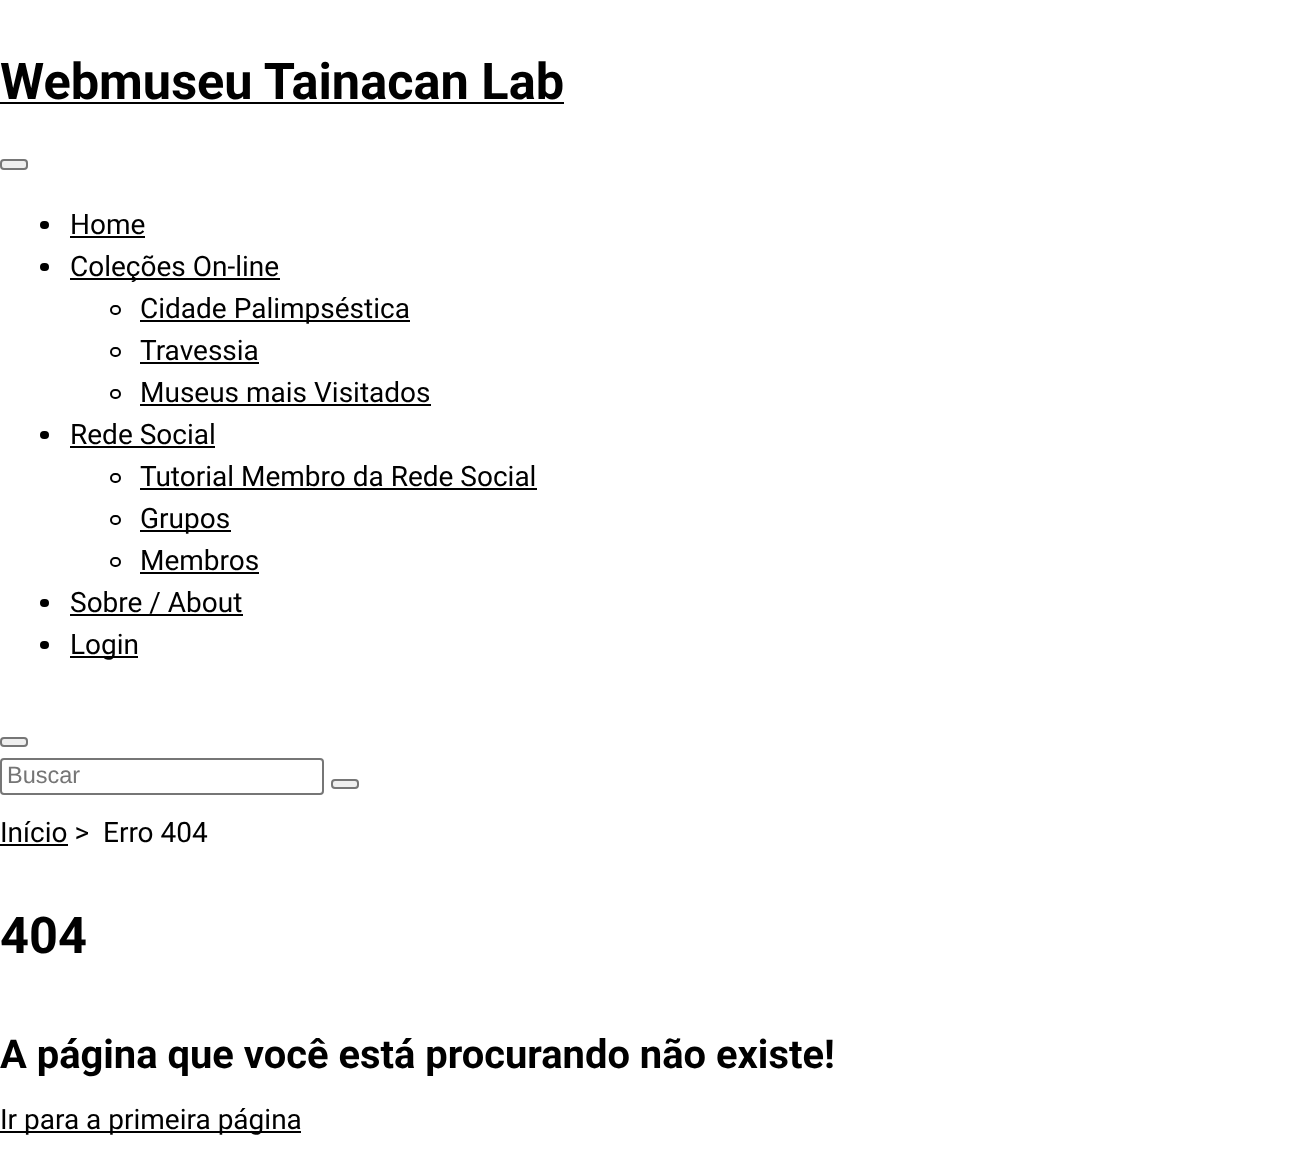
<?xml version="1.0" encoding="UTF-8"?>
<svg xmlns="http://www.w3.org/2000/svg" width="1315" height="1163">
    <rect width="100%" height="100%" fill="#FFFFFF"/>
    <text x="0" y="99" font-family="Roboto" font-size="50.5" font-weight="700" fill="#000000">Webmuseu Tainacan Lab</text>
    <rect x="0" y="102" width="564" height="2" fill="#000000"/>
    <rect x="1" y="160" width="26" height="9" rx="3" fill="#EFEFEF" stroke="#767676" stroke-width="2"/>
    <rect x="40" y="221" width="9" height="8" rx="4" fill="#000000"/>
    <text x="70" y="234" font-family="Roboto" font-size="28" fill="#000000">Home</text>
    <rect x="70" y="236" width="75" height="2" fill="#000000"/>
    <rect x="40" y="263" width="9" height="8" rx="4" fill="#000000"/>
    <rect x="70" y="278" width="210" height="2" fill="#000000"/>
    <text x="70" y="276" font-family="Roboto" font-size="28" fill="#000000">Coleções On-line</text>
    <rect x="111" y="306" width="9" height="8" rx="4" fill="none" stroke="#000000" stroke-width="2"/>
    <rect x="140" y="320" width="270" height="2" fill="#000000"/>
    <text x="140" y="318" font-family="Roboto" font-size="28" fill="#000000">Cidade Palimpséstica</text>
    <rect x="111" y="348" width="9" height="8" rx="4" fill="none" stroke="#000000" stroke-width="2"/>
    <text x="140" y="360" font-family="Roboto" font-size="28" fill="#000000">Travessia</text>
    <rect x="140" y="362" width="119" height="2" fill="#000000"/>
    <rect x="111" y="390" width="9" height="8" rx="4" fill="none" stroke="#000000" stroke-width="2"/>
    <text x="140" y="402" font-family="Roboto" font-size="28" fill="#000000">Museus mais Visitados</text>
    <rect x="140" y="404" width="291" height="2" fill="#000000"/>
    <rect x="40" y="431" width="9" height="8" rx="4" fill="#000000"/>
    <text x="70" y="444" font-family="Roboto" font-size="28" fill="#000000">Rede Social</text>
    <rect x="70" y="446" width="145" height="2" fill="#000000"/>
    <rect x="111" y="474" width="9" height="8" rx="4" fill="none" stroke="#000000" stroke-width="2"/>
    <text x="140" y="486" font-family="Roboto" font-size="28" fill="#000000">Tutorial Membro da Rede Social</text>
    <rect x="140" y="488" width="397" height="2" fill="#000000"/>
    <rect x="111" y="516" width="9" height="8" rx="4" fill="none" stroke="#000000" stroke-width="2"/>
    <rect x="140" y="530" width="91" height="2" fill="#000000"/>
    <text x="140" y="528" font-family="Roboto" font-size="28" fill="#000000">Grupos</text>
    <rect x="111" y="558" width="9" height="8" rx="4" fill="none" stroke="#000000" stroke-width="2"/>
    <text x="140" y="570" font-family="Roboto" font-size="28" fill="#000000">Membros</text>
    <rect x="140" y="572" width="119" height="2" fill="#000000"/>
    <rect x="40" y="599" width="9" height="8" rx="4" fill="#000000"/>
    <text x="70" y="612" font-family="Roboto" font-size="28" fill="#000000">Sobre / About</text>
    <rect x="70" y="614" width="173" height="2" fill="#000000"/>
    <rect x="40" y="641" width="9" height="8" rx="4" fill="#000000"/>
    <rect x="70" y="656" width="68" height="2" fill="#000000"/>
    <text x="70" y="654" font-family="Roboto" font-size="28" fill="#000000">Login</text>
    <rect x="1" y="738" width="26" height="8" rx="3" fill="#EFEFEF" stroke="#767676" stroke-width="2"/>
    <rect x="1" y="759" width="322" height="35" rx="3" fill="none" stroke="#767676" stroke-width="2"/>
    <text x="7" y="783" font-family="Liberation Sans" font-size="23.5" fill="#757575">Buscar</text>
    <rect x="332" y="780" width="26" height="8" rx="3" fill="#EFEFEF" stroke="#767676" stroke-width="2"/>
    <text x="0" y="842" font-family="Roboto" font-size="28" fill="#000000">Início &gt;</text>
    <rect x="0" y="844" width="68" height="2" fill="#000000"/>
    <text x="103" y="842" font-family="Roboto" font-size="28" fill="#000000">Erro 404</text>
    <text x="0" y="953" font-family="Roboto" font-size="50.5" font-weight="700" fill="#000000">404</text>
    <text x="0" y="1068" font-family="Roboto" font-size="39.9" font-weight="700" fill="#000000">A página que você está procurando não existe!</text>
    <rect x="0" y="1131" width="301" height="2" fill="#000000"/>
    <text x="0" y="1129" font-family="Roboto" font-size="28" fill="#000000">Ir para a primeira página</text>
</svg>
